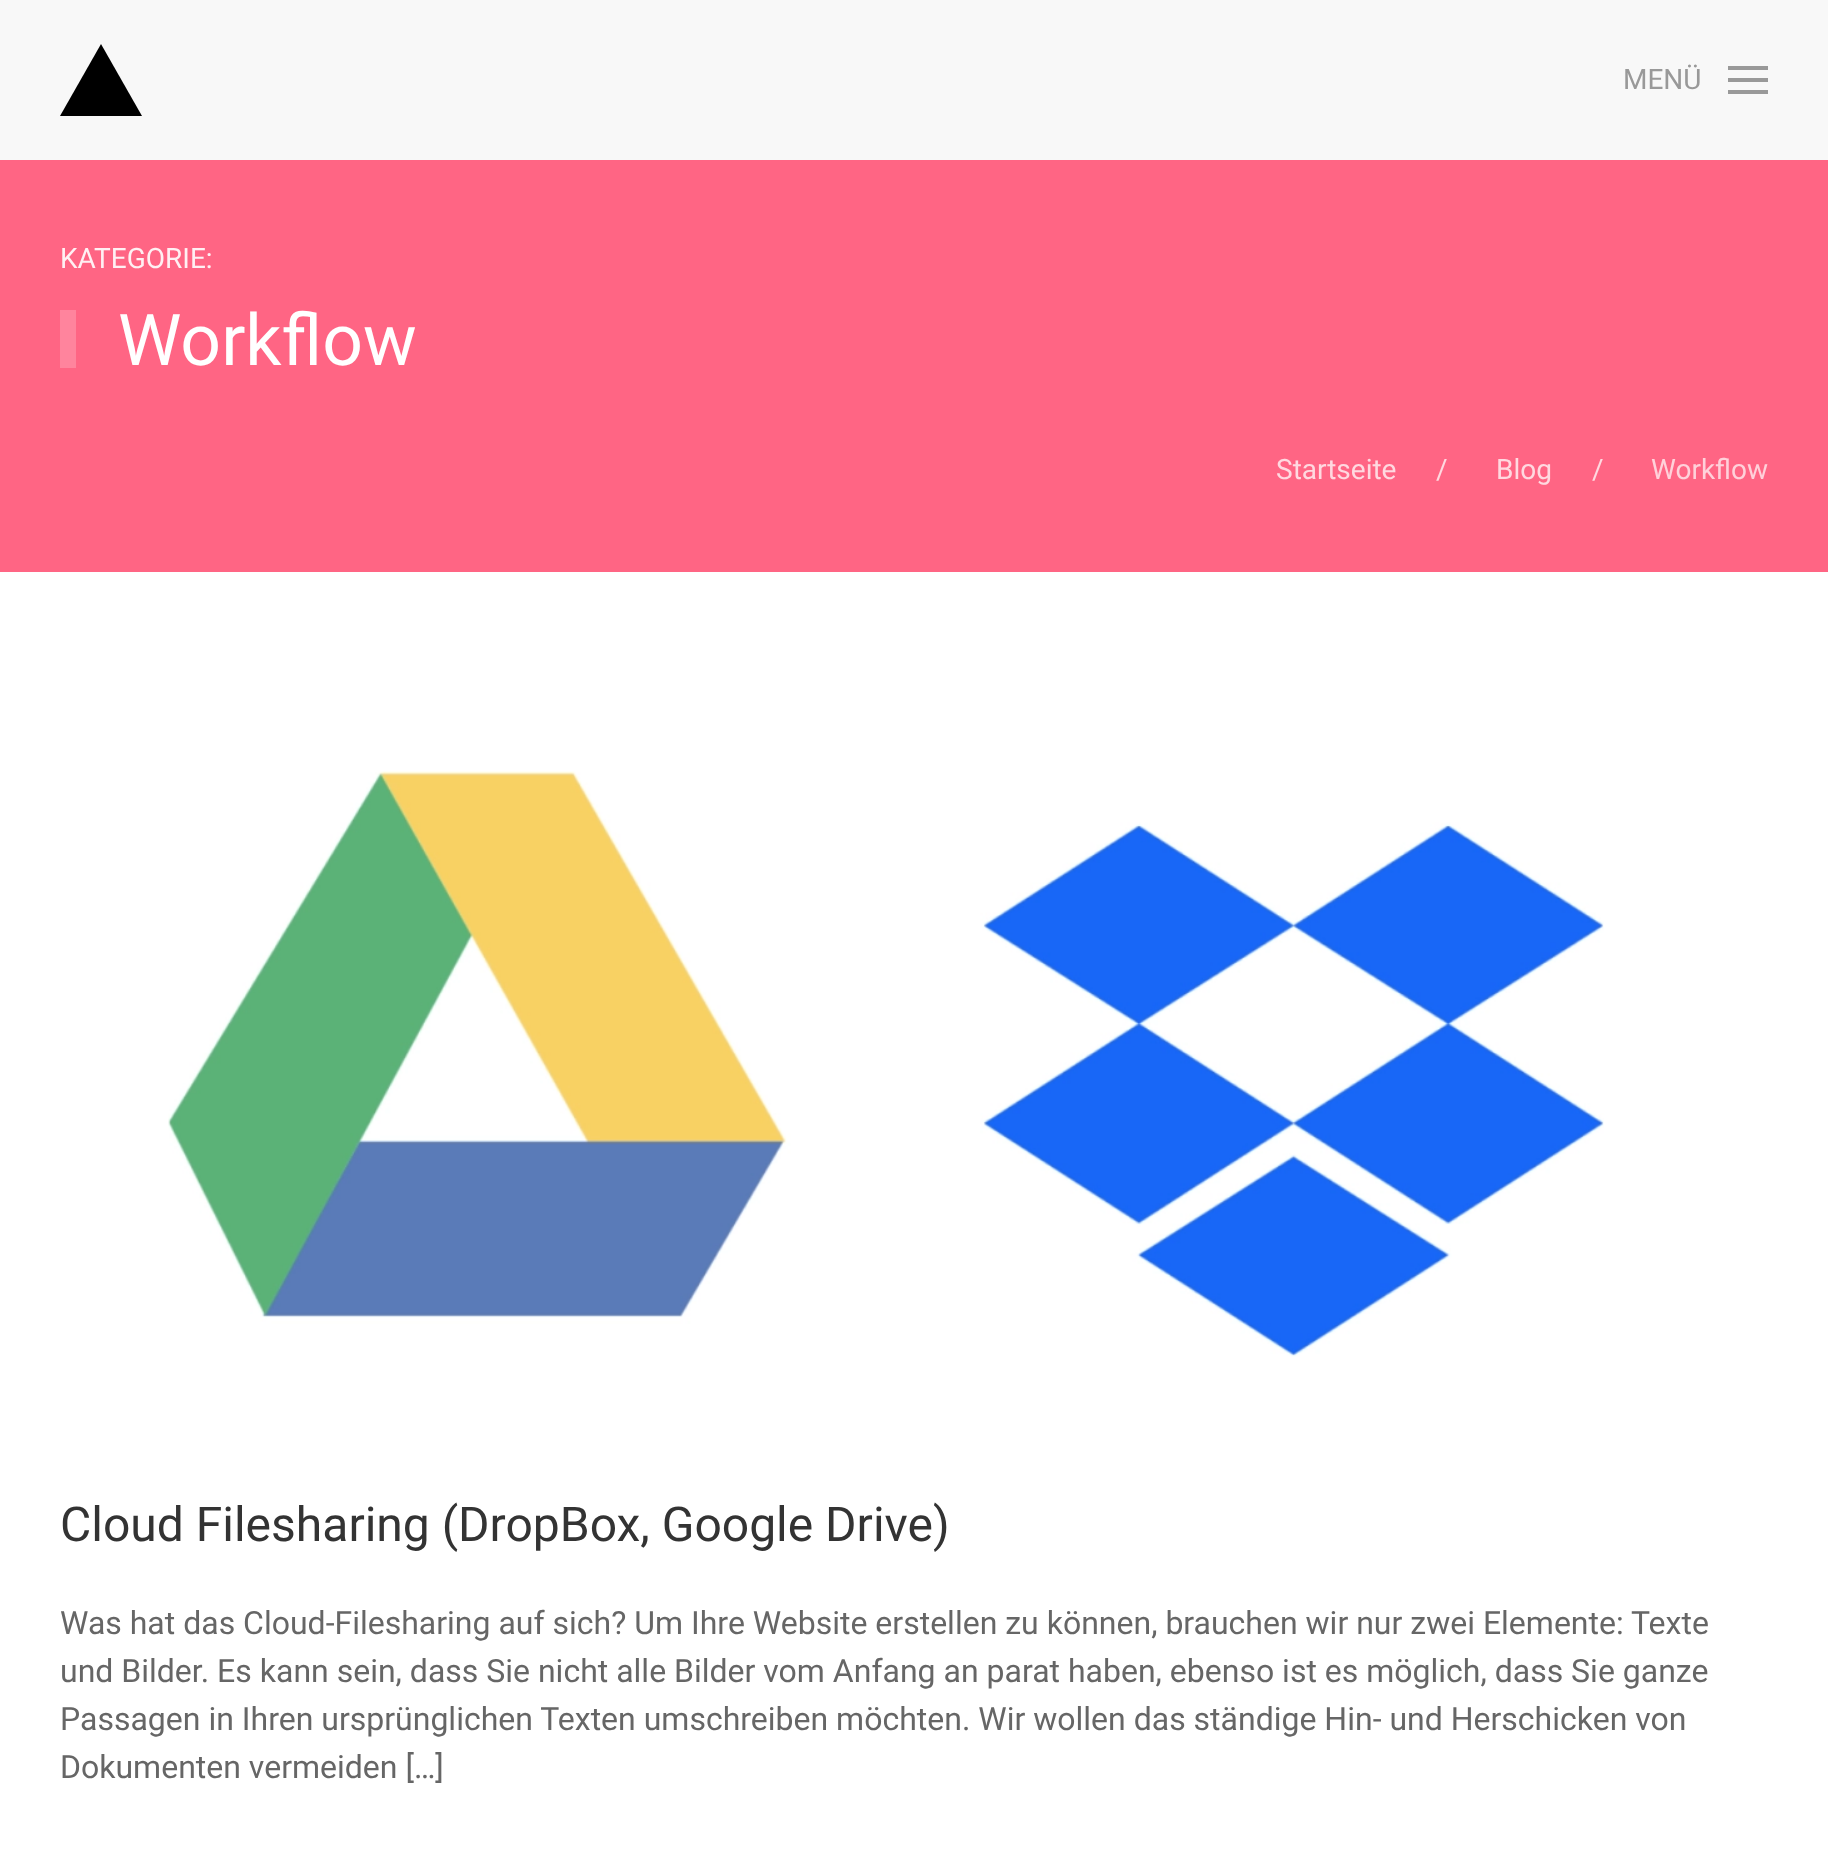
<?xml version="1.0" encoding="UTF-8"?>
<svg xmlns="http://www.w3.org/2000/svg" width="1828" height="1854">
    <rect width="100%" height="100%" fill="#FFFFFF"/>
    <rect x="0" y="0" width="1828" height="160" fill="#F8F8F8"/>
    <path d="M 101 44 L 142 116 H 60 Z" fill="#000000" fill-rule="evenodd"/>
    <text x="1623" y="89" font-family="Roboto" font-size="28" fill="#999999">MENÜ</text>
    <rect x="1728" y="66" width="40" height="4" fill="#999999"/>
    <rect x="1728" y="78" width="40" height="4" fill="#999999"/>
    <rect x="1728" y="90" width="40" height="4" fill="#999999"/>
    <rect x="0" y="160" width="1828" height="412" fill="#FF6584"/>
    <text x="60" y="268" font-family="Roboto" font-size="28" fill="#FFF0F3">KATEGORIE:</text>
    <rect x="60" y="310" width="16" height="58" fill="#FF849D"/>
    <text x="118" y="365" font-family="Roboto" font-size="71.5" fill="#FFFFFF">Workflow</text>
    <text x="1276" y="479" font-family="Roboto" font-size="28" fill="#FFD9E0">Startseite</text>
    <text x="1436" y="479" font-family="Roboto" font-size="28" fill="#FFD9E0">/</text>
    <text x="1496" y="479" font-family="Roboto" font-size="28" fill="#FFD9E0">Blog</text>
    <text x="1592" y="479" font-family="Roboto" font-size="28" fill="#FFD9E0">/</text>
    <text x="1651" y="479" font-family="Roboto" font-size="28" fill="#FFD1DA">Workflow</text>
    <image x="168" y="771" width="1436" height="586" href="img_01.png"/>
    <text x="60" y="1541" font-family="Roboto" font-size="48" fill="#333333">Cloud Filesharing (DropBox, Google Drive)</text>
    <text font-family="Roboto" font-size="32" fill="#666666">
        <tspan x="60" y="1634">Was hat das Cloud-Filesharing auf sich? Um Ihre Website erstellen zu können, brauchen wir nur zwei Elemente: Texte</tspan>
        <tspan x="60" y="1682">und Bilder. Es kann sein, dass Sie nicht alle Bilder vom Anfang an parat haben, ebenso ist es möglich, dass Sie ganze</tspan>
        <tspan x="60" y="1730">Passagen in Ihren ursprünglichen Texten umschreiben möchten. Wir wollen das ständige Hin- und Herschicken von</tspan>
        <tspan x="60" y="1778">Dokumenten vermeiden […]</tspan>
    </text>
</svg>
